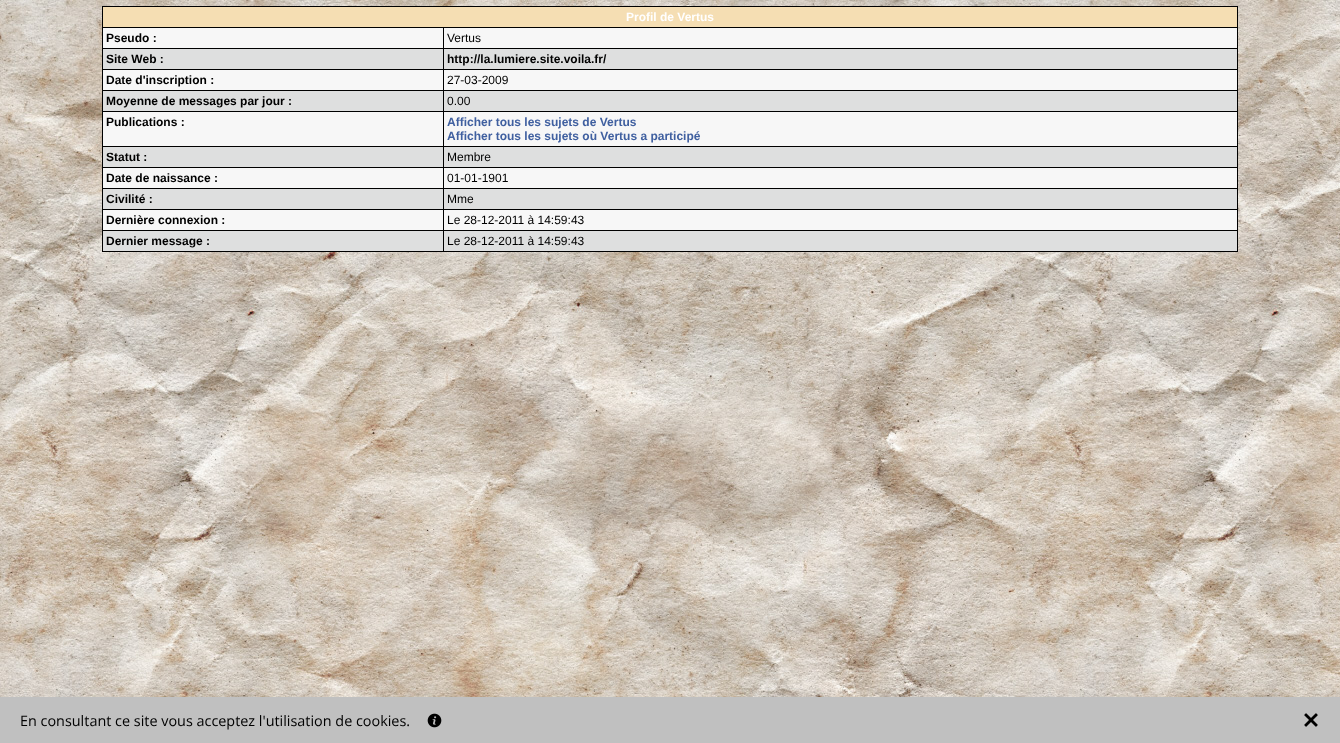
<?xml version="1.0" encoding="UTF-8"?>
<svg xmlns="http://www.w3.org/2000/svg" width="1340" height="743">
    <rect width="100%" height="100%" fill="#FFFFFF"/>
    <image x="0" y="0" width="1340" height="697" href="img_01.png"/>
    <rect x="102" y="6" width="1136" height="1" fill="#000000"/>
    <rect x="102" y="6" width="1" height="246" fill="#000000"/>
    <rect x="103" y="7" width="1134" height="20" fill="#F5DEB3"/>
    <rect x="1237" y="7" width="1" height="245" fill="#000000"/>
    <rect x="103" y="27" width="1135" height="1" fill="#000000"/>
    <text x="626" y="21" font-family="Liberation Sans" font-size="12" font-weight="700" fill="#FFFFFF">Profil de Vertus</text>
    <rect x="103" y="28" width="340" height="20" fill="#F7F7F7"/>
    <rect x="443" y="28" width="1" height="224" fill="#000000"/>
    <rect x="103" y="48" width="1135" height="1" fill="#000000"/>
    <text x="106" y="42" font-family="Liberation Sans" font-size="12" font-weight="700" fill="#000000">Pseudo :</text>
    <rect x="444" y="28" width="793" height="20" fill="#F7F7F7"/>
    <text x="447" y="42" font-family="Liberation Sans" font-size="12" fill="#000000">Vertus</text>
    <rect x="103" y="49" width="340" height="20" fill="#DEDFDF"/>
    <rect x="103" y="69" width="1135" height="1" fill="#000000"/>
    <text x="106" y="63" font-family="Liberation Sans" font-size="12" font-weight="700" fill="#000000">Site Web :</text>
    <rect x="444" y="49" width="793" height="20" fill="#DEDFDF"/>
    <text x="447" y="63" font-family="Liberation Sans" font-size="12" font-weight="700" fill="#000000">http://la.lumiere.site.voila.fr/</text>
    <rect x="103" y="70" width="340" height="20" fill="#F7F7F7"/>
    <rect x="103" y="90" width="1135" height="1" fill="#000000"/>
    <text x="106" y="84" font-family="Liberation Sans" font-size="12" font-weight="700" fill="#000000">Date d'inscription :</text>
    <rect x="444" y="70" width="793" height="20" fill="#F7F7F7"/>
    <text x="447" y="84" font-family="Liberation Sans" font-size="12" fill="#000000">27-03-2009</text>
    <rect x="103" y="91" width="340" height="20" fill="#DEDFDF"/>
    <rect x="103" y="111" width="1135" height="1" fill="#000000"/>
    <text x="106" y="105" font-family="Liberation Sans" font-size="12" font-weight="700" fill="#000000">Moyenne de messages par jour :</text>
    <rect x="444" y="91" width="793" height="20" fill="#DEDFDF"/>
    <text x="447" y="105" font-family="Liberation Sans" font-size="12" fill="#000000">0.00</text>
    <rect x="103" y="112" width="340" height="34" fill="#F7F7F7"/>
    <rect x="103" y="146" width="1135" height="1" fill="#000000"/>
    <text x="106" y="126" font-family="Liberation Sans" font-size="12" font-weight="700" fill="#000000">Publications :</text>
    <rect x="444" y="112" width="793" height="34" fill="#F7F7F7"/>
    <text font-family="Liberation Sans" font-size="12" font-weight="700" fill="#4060A0">
        <tspan x="447" y="126">Afficher tous les sujets de Vertus</tspan>
        <tspan x="447" y="140">Afficher tous les sujets où Vertus a participé</tspan>
    </text>
    <rect x="103" y="147" width="340" height="20" fill="#DEDFDF"/>
    <rect x="103" y="167" width="1135" height="1" fill="#000000"/>
    <text x="106" y="161" font-family="Liberation Sans" font-size="12" font-weight="700" fill="#000000">Statut :</text>
    <rect x="444" y="147" width="793" height="20" fill="#DEDFDF"/>
    <text x="447" y="161" font-family="Liberation Sans" font-size="12" fill="#000000">Membre</text>
    <rect x="103" y="168" width="340" height="20" fill="#F7F7F7"/>
    <rect x="103" y="188" width="1135" height="1" fill="#000000"/>
    <text x="106" y="182" font-family="Liberation Sans" font-size="12" font-weight="700" fill="#000000">Date de naissance :</text>
    <rect x="444" y="168" width="793" height="20" fill="#F7F7F7"/>
    <text x="447" y="182" font-family="Liberation Sans" font-size="12" fill="#000000">01-01-1901</text>
    <rect x="103" y="189" width="340" height="20" fill="#DEDFDF"/>
    <rect x="103" y="209" width="1135" height="1" fill="#000000"/>
    <text x="106" y="203" font-family="Liberation Sans" font-size="12" font-weight="700" fill="#000000">Civilité :</text>
    <rect x="444" y="189" width="793" height="20" fill="#DEDFDF"/>
    <text x="447" y="203" font-family="Liberation Sans" font-size="12" fill="#000000">Mme</text>
    <rect x="103" y="210" width="340" height="20" fill="#F7F7F7"/>
    <rect x="103" y="230" width="1135" height="1" fill="#000000"/>
    <text x="106" y="224" font-family="Liberation Sans" font-size="12" font-weight="700" fill="#000000">Dernière connexion :</text>
    <rect x="444" y="210" width="793" height="20" fill="#F7F7F7"/>
    <text x="447" y="224" font-family="Liberation Sans" font-size="12" fill="#000000">Le 28-12-2011 à 14:59:43</text>
    <rect x="103" y="231" width="340" height="20" fill="#DEDFDF"/>
    <rect x="103" y="251" width="1135" height="1" fill="#000000"/>
    <text x="106" y="245" font-family="Liberation Sans" font-size="12" font-weight="700" fill="#000000">Dernier message :</text>
    <rect x="444" y="231" width="793" height="20" fill="#DEDFDF"/>
    <text x="447" y="245" font-family="Liberation Sans" font-size="12" fill="#000000">Le 28-12-2011 à 14:59:43</text>
    <rect x="0" y="697" width="1340" height="46" fill="#C0C0C0"/>
    <text x="20" y="726" font-family="Open Sans" font-size="14.4" fill="#000000">En consultant ce site vous acceptez l'utilisation de cookies.</text>
    <image x="427" y="713" width="15" height="15" href="img_02.png"/>
    <image x="1304" y="713" width="14" height="14" href="img_03.png"/>
</svg>
